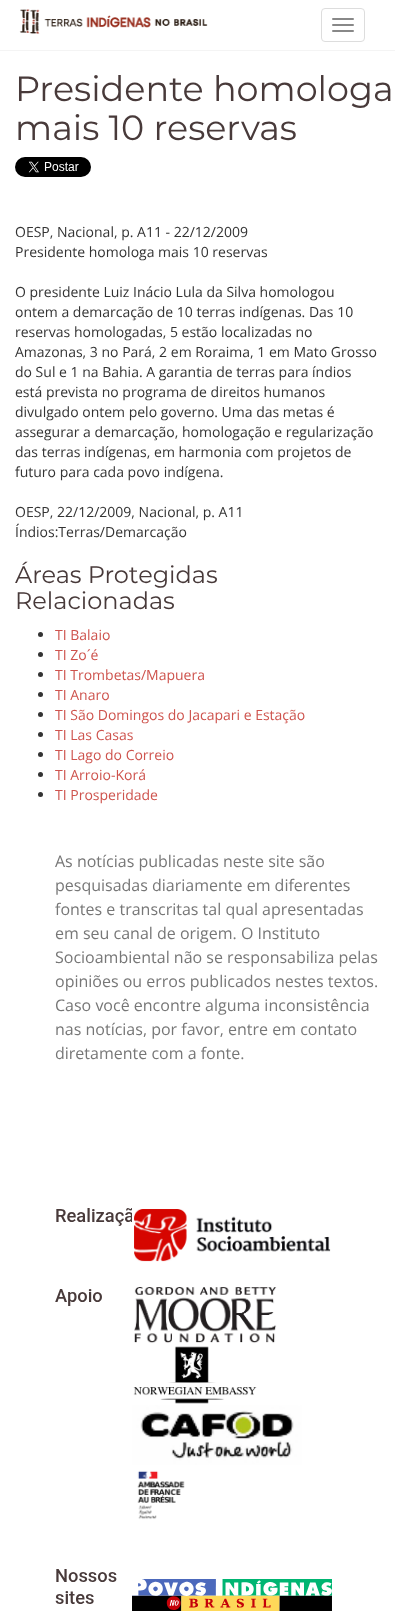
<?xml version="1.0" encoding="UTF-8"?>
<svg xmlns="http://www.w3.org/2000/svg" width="395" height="1622">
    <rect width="100%" height="100%" fill="#FFFFFF"/>
    <rect x="0" y="50" width="395" height="1" fill="#F4F4F4"/>
    <image x="19" y="9" width="189" height="25" href="img_01.png"/>
    <rect x="321.5" y="8.5" width="43" height="33" rx="3.5" fill="none" stroke="#DDDDDD"/>
    <rect x="332" y="18" width="22" height="2" rx="1" fill="#888888"/>
    <rect x="332" y="24" width="22" height="2" rx="1" fill="#888888"/>
    <rect x="332" y="30" width="22" height="2" rx="1" fill="#888888"/>
    <text font-family="Montserrat" font-size="35" font-weight="100" fill="#483A3A">
        <tspan x="15" y="101">Presidente homologa</tspan>
        <tspan x="15" y="140">mais 10 reservas</tspan>
    </text>
    <image x="15" y="157" width="76" height="20" href="img_02.png"/>
    <text font-family="Open Sans" font-size="14" fill="#333333">
        <tspan x="15" y="237">OESP, Nacional, p. A11 - 22/12/2009</tspan>
        <tspan x="15" y="257">Presidente homologa mais 10 reservas</tspan>
    </text>
    <text font-family="Open Sans" font-size="14" fill="#333333">
        <tspan x="15" y="297">O presidente Luiz Inácio Lula da Silva homologou</tspan>
        <tspan x="15" y="317">ontem a demarcação de 10 terras indígenas. Das 10</tspan>
        <tspan x="15" y="337">reservas homologadas, 5 estão localizadas no</tspan>
        <tspan x="15" y="357">Amazonas, 3 no Pará, 2 em Roraima, 1 em Mato Grosso</tspan>
        <tspan x="15" y="377">do Sul e 1 na Bahia. A garantia de terras para índios</tspan>
        <tspan x="15" y="397">está prevista no programa de direitos humanos</tspan>
        <tspan x="15" y="417">divulgado ontem pelo governo. Uma das metas é</tspan>
        <tspan x="15" y="437">assegurar a demarcação, homologação e regularização</tspan>
        <tspan x="15" y="457">das terras indígenas, em harmonia com projetos de</tspan>
        <tspan x="15" y="477">futuro para cada povo indígena.</tspan>
    </text>
    <text font-family="Open Sans" font-size="14" fill="#333333">
        <tspan x="15" y="517">OESP, 22/12/2009, Nacional, p. A11</tspan>
        <tspan x="15" y="537">Índios:Terras/Demarcação</tspan>
    </text>
    <text font-family="Montserrat" font-size="24" font-weight="100" fill="#483A3A">
        <tspan x="15" y="583">Áreas Protegidas</tspan>
        <tspan x="15" y="609">Relacionadas</tspan>
    </text>
    <circle cx="40.5" cy="634.5" r="2.5" fill="#333333"/>
    <text x="55" y="640" font-family="Open Sans" font-size="14" fill="#CE534D">TI Balaio</text>
    <circle cx="40.5" cy="654.5" r="2.5" fill="#333333"/>
    <text x="55" y="660" font-family="Open Sans" font-size="14" fill="#CE534D">TI Zo´é</text>
    <circle cx="40.5" cy="674.5" r="2.5" fill="#333333"/>
    <text x="55" y="680" font-family="Open Sans" font-size="14" fill="#CE534D">TI Trombetas/Mapuera</text>
    <circle cx="40.5" cy="694.5" r="2.5" fill="#333333"/>
    <text x="55" y="700" font-family="Open Sans" font-size="14" fill="#CE534D">TI Anaro</text>
    <circle cx="40.5" cy="714.5" r="2.5" fill="#333333"/>
    <text x="55" y="720" font-family="Open Sans" font-size="14" fill="#CE534D">TI São Domingos do Jacapari e Estação</text>
    <circle cx="40.5" cy="734.5" r="2.5" fill="#333333"/>
    <text x="55" y="740" font-family="Open Sans" font-size="14" fill="#CE534D">TI Las Casas</text>
    <circle cx="40.5" cy="754.5" r="2.5" fill="#333333"/>
    <text x="55" y="760" font-family="Open Sans" font-size="14" fill="#CE534D">TI Lago do Correio</text>
    <circle cx="40.5" cy="774.5" r="2.5" fill="#333333"/>
    <text x="55" y="780" font-family="Open Sans" font-size="14" fill="#CE534D">TI Arroio-Korá</text>
    <circle cx="40.5" cy="794.5" r="2.5" fill="#333333"/>
    <text x="55" y="800" font-family="Open Sans" font-size="14" fill="#CE534D">TI Prosperidade</text>
    <text font-family="Open Sans" font-size="16" fill="#777777">
        <tspan x="55" y="867">As notícias publicadas neste site são</tspan>
        <tspan x="55" y="891">pesquisadas diariamente em diferentes</tspan>
        <tspan x="55" y="915">fontes e transcritas tal qual apresentadas</tspan>
        <tspan x="55" y="939">em seu canal de origem. O Instituto</tspan>
        <tspan x="55" y="963">Socioambiental não se responsabiliza pelas</tspan>
        <tspan x="55" y="987">opiniões ou erros publicados nestes textos.</tspan>
        <tspan x="55" y="1011">Caso você encontre alguma inconsistência</tspan>
        <tspan x="55" y="1035">nas notícias, por favor, entre em contato</tspan>
        <tspan x="55" y="1059">diretamente com a fonte.</tspan>
    </text>
    <image x="55" y="1208" width="277" height="403" href="img_03.png"/>
</svg>
